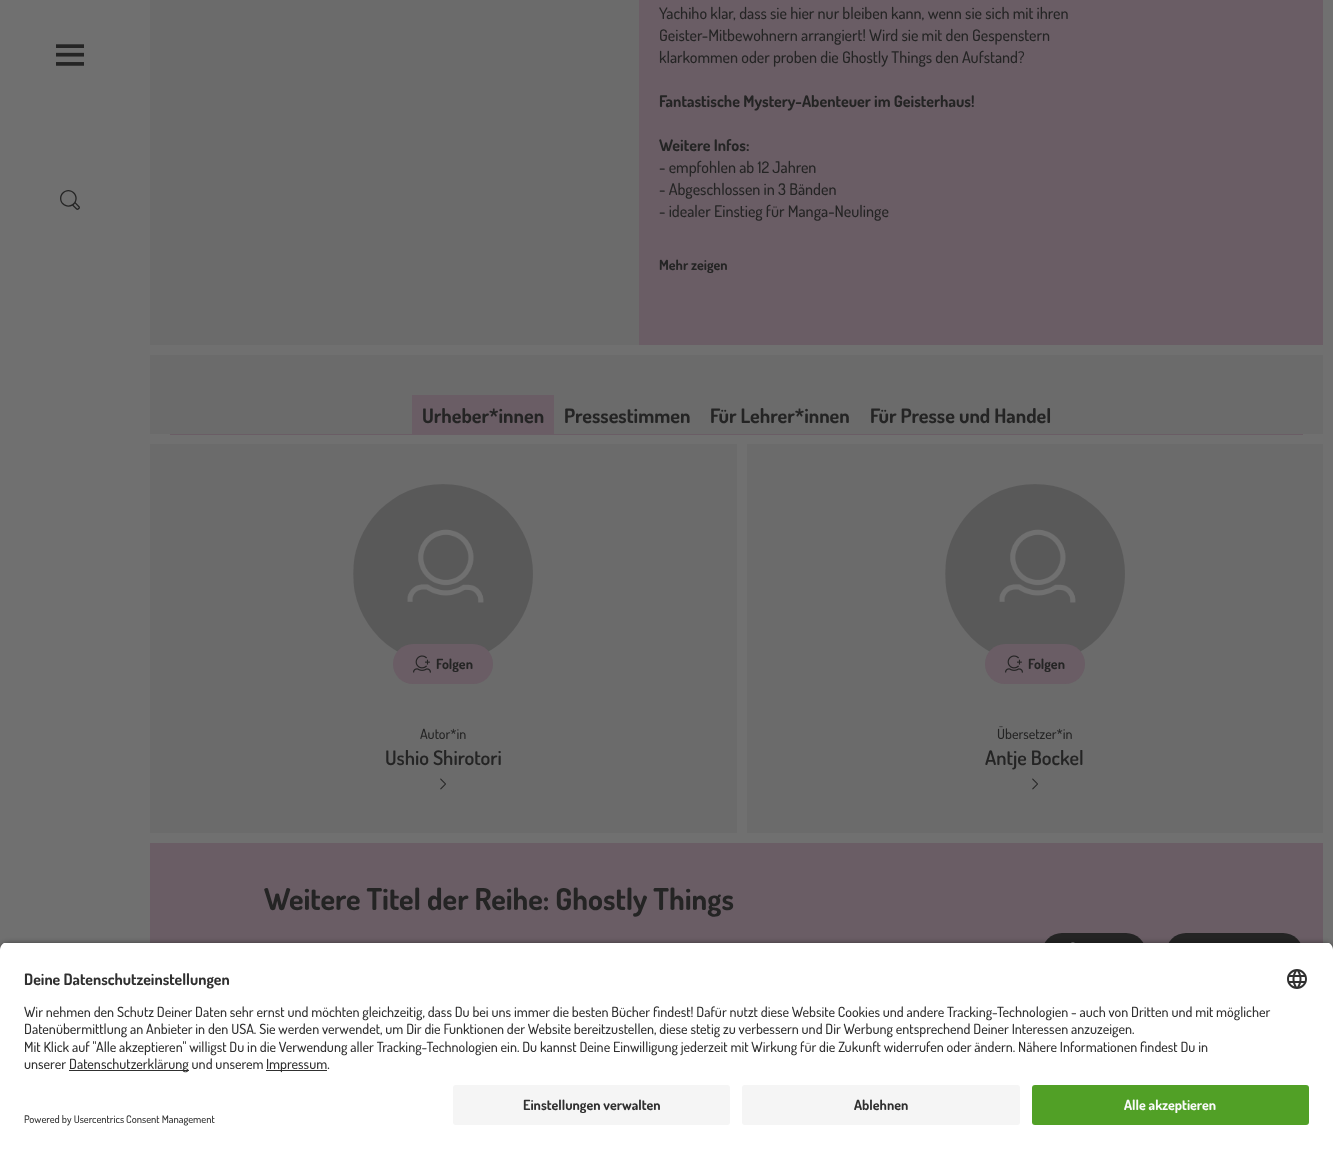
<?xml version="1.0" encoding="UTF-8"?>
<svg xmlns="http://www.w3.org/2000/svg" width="1333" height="1149">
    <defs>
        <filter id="blur1" x="-50%" y="-200%" width="200%" height="500%"><feGaussianBlur stdDeviation="3.5"/></filter>
        <clipPath id="clip1"><path d="M 8 942 H 1325 C 1329.5 942 1333 945.5 1333 950 V 1077 H 0 V 950 C 0 945.5 3.5 942 8 942 Z"/></clipPath>
    </defs>
    <rect width="100%" height="100%" fill="#707070"/>
    <image x="56" y="44" width="28" height="22" href="img_01.png"/>
    <image x="60" y="190" width="20" height="20" href="img_02.png"/>
    <rect x="639" y="0" width="684" height="345" fill="#6A5D65"/>
    <rect x="150" y="0" width="489" height="345" fill="#6B6B6B"/>
    <text font-family="Dosis" font-size="16" font-weight="500" fill="#242424">
        <tspan x="659" y="19">Yachiho klar, dass sie hier nur bleiben kann, wenn sie sich mit ihren</tspan>
        <tspan x="659" y="41">Geister-Mitbewohnern arrangiert! Wird sie mit den Gespenstern</tspan>
        <tspan x="659" y="63">klarkommen oder proben die Ghostly Things den Aufstand?</tspan>
    </text>
    <text x="659" y="107" font-family="Dosis" font-size="16" font-weight="700" fill="#242424">Fantastische Mystery-Abenteuer im Geisterhaus!</text>
    <text x="659" y="151" font-family="Dosis" font-size="16" font-weight="700" fill="#242424">Weitere Infos:</text>
    <text font-family="Dosis" font-size="16" font-weight="500" fill="#242424">
        <tspan x="659" y="173">- empfohlen ab 12 Jahren</tspan>
        <tspan x="659" y="195">- Abgeschlossen in 3 Bänden</tspan>
        <tspan x="659" y="217">- idealer Einstieg für Manga-Neulinge</tspan>
    </text>
    <text x="659" y="270" font-family="Dosis" font-size="14" font-weight="700" fill="#242424">Mehr zeigen</text>
    <rect x="150" y="355" width="1173" height="478" fill="#6B6B6B"/>
    <rect x="412" y="395" width="142" height="39" fill="#6A5D65"/>
    <text x="422" y="423" font-family="Dosis" font-size="20" font-weight="700" fill="#242424">Urheber*innen</text>
    <text x="564" y="423" font-family="Dosis" font-size="20" font-weight="700" fill="#242424">Pressestimmen</text>
    <text x="710" y="423" font-family="Dosis" font-size="20" font-weight="700" fill="#242424">Für Lehrer*innen</text>
    <text x="870" y="423" font-family="Dosis" font-size="20" font-weight="700" fill="#242424">Für Presse und Handel</text>
    <rect x="150" y="434" width="1173" height="10" fill="#707070"/>
    <rect x="170" y="434" width="1133" height="1" fill="#6A5D65"/>
    <image x="353" y="484" width="180" height="168" href="img_03.png"/>
    <rect x="393" y="644" width="100" height="40" rx="20" fill="#6A5D65"/>
    <image x="413" y="655" width="18" height="18" href="img_04.png"/>
    <text x="436" y="669" font-family="Dosis" font-size="14" font-weight="700" fill="#242424">Folgen</text>
    <text x="420" y="739" font-family="Dosis" font-size="14" font-weight="500" fill="#242424">Autor*in</text>
    <text x="385" y="765" font-family="Dosis" font-size="20" font-weight="600" fill="#242424">Ushio Shirotori</text>
    <image x="440" y="778" width="6" height="12" href="img_05.png"/>
    <rect x="737" y="444" width="10" height="389" fill="#707070"/>
    <image x="945" y="484" width="180" height="168" href="img_06.png"/>
    <rect x="985" y="644" width="100" height="40" rx="20" fill="#6A5D65"/>
    <image x="1005" y="655" width="18" height="18" href="img_04.png"/>
    <text x="1028" y="669" font-family="Dosis" font-size="14" font-weight="700" fill="#242424">Folgen</text>
    <text x="997" y="739" font-family="Dosis" font-size="14" font-weight="500" fill="#242424">Übersetzer*in</text>
    <text x="985" y="765" font-family="Dosis" font-size="20" font-weight="600" fill="#242424">Antje Bockel</text>
    <image x="1032" y="778" width="6" height="12" href="img_05.png"/>
    <path d="M 150 843 V 1033 L 1323 1053 V 843 Z" fill="#6A5D65"/>
    <text x="264" y="910" font-family="Dosis" font-size="30" font-weight="700" fill="#242424">Weitere Titel der Reihe: Ghostly Things</text>
    <rect x="1042" y="933" width="104" height="40" rx="20" fill="#242424"/>
    <image x="1071" y="942" width="4" height="1" href="img_07.png"/>
    <rect x="1166" y="933" width="137" height="40" rx="20" fill="#242424"/>
    <rect x="0" y="945" width="1333" height="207" rx="8" fill="#000000" fill-opacity="0.8" filter="url(#blur1)"/>
    <g clip-path="url(#clip1)">
        <rect x="0" y="943" width="1333" height="134" fill="#FFFFFF"/>
    </g>
    <text x="24" y="985" font-family="Dosis" font-size="15.75" font-weight="700" fill="#303030">Deine Datenschutzeinstellungen</text>
    <image x="1287" y="969" width="20" height="20" href="img_08.png"/>
    <text font-family="Dosis" font-size="14" font-weight="500" fill="#303030">
        <tspan x="24" y="1017">Wir nehmen den Schutz Deiner Daten sehr ernst und möchten gleichzeitig, dass Du bei uns immer die besten Bücher findest! Dafür nutzt diese Website Cookies und andere Tracking-Technologien - auch von Dritten und mit möglicher</tspan>
        <tspan x="24" y="1034">Datenübermittlung an Anbieter in den USA. Sie werden verwendet, um Dir die Funktionen der Website bereitzustellen, diese stetig zu verbessern und Dir Werbung entsprechend Deiner Interessen anzuzeigen.</tspan>
        <tspan x="24" y="1052">Mit Klick auf "</tspan>
    </text>
    <text x="96" y="1052" font-family="Dosis" font-size="14" font-weight="500" fill="#303030">Alle akzeptieren" willigst Du in die Verwendung aller Tracking-Technologien ein. Du kannst Deine Einwilligung jederzeit mit Wirkung für die Zukunft widerrufen oder ändern. Nähere Informationen findest Du in</text>
    <text x="24" y="1069" font-family="Dosis" font-size="14" font-weight="500" fill="#303030">unserer</text>
    <rect x="69" y="1070" width="120" height="1" fill="#303030"/>
    <text x="69" y="1069" font-family="Dosis" font-size="14" font-weight="500" fill="#303030">Datenschutzerklärung und unserem</text>
    <rect x="266" y="1070" width="61" height="1" fill="#303030"/>
    <text x="266" y="1069" font-family="Dosis" font-size="14" font-weight="500" fill="#303030">Impressum.</text>
    <rect x="0" y="1077" width="1333" height="72" fill="#FFFFFF"/>
    <rect x="453" y="1085" width="277" height="40" rx="3" fill="#F5F5F5"/>
    <text x="523" y="1110" font-family="Dosis" font-size="14" font-weight="700" fill="#303030">Einstellungen verwalten</text>
    <rect x="742" y="1085" width="278" height="40" rx="3" fill="#F5F5F5"/>
    <text x="854" y="1110" font-family="Dosis" font-size="14" font-weight="700" fill="#303030">Ablehnen</text>
    <rect x="1032" y="1085" width="277" height="40" rx="3" fill="#51A026"/>
    <text x="1124" y="1110" font-family="Dosis" font-size="14" font-weight="700" fill="#FAFAFA">Alle akzeptieren</text>
    <text x="24" y="1123" font-family="Dosis" font-size="10.5" font-weight="500" fill="#303030">Powered by Usercentrics Consent Management</text>
</svg>
